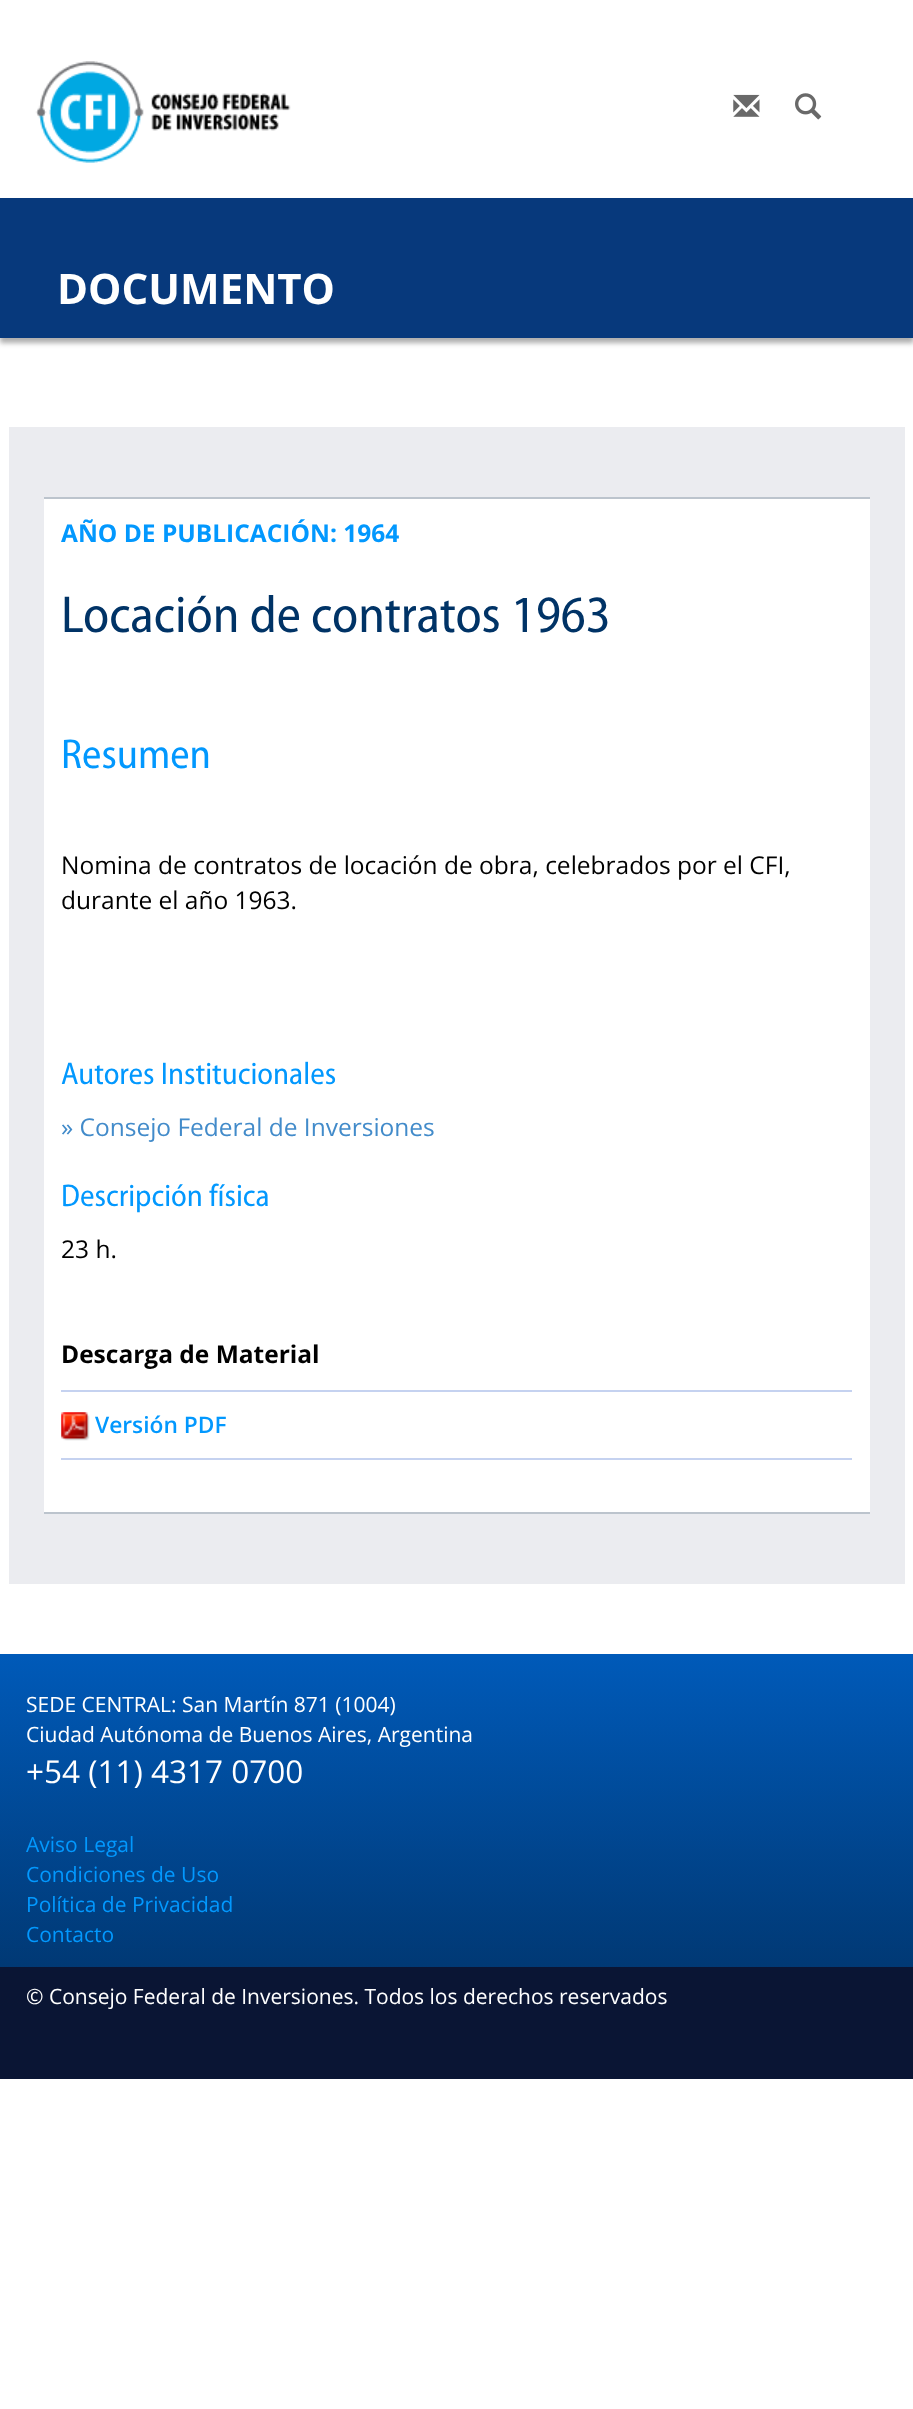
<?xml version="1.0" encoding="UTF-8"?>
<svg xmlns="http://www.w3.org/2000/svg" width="913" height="2409">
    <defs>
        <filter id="blur1" x="-50%" y="-200%" width="200%" height="500%"><feGaussianBlur stdDeviation="2.5"/></filter>
        <linearGradient id="g1" gradientUnits="userSpaceOnUse" x1="457" y1="1654" x2="457" y2="2079"><stop offset="0" stop-color="#005AB9"/><stop offset="1" stop-color="#012D5C"/></linearGradient>
    </defs>
    <rect width="100%" height="100%" fill="#FFFFFF"/>
    <image x="35" y="61" width="256" height="102" href="img_01.png"/>
    <image x="733" y="94" width="27" height="23" href="img_02.png"/>
    <image x="795" y="93" width="27" height="27" href="img_03.png"/>
    <rect x="0" y="203" width="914" height="140" fill="#ADADAD" filter="url(#blur1)"/>
    <rect x="0" y="198" width="913" height="140" fill="#07397C"/>
    <text x="57" y="304" font-family="Open Sans" font-size="42" font-weight="700" fill="#FFFFFF">DOCUMENTO</text>
    <rect x="9" y="427" width="896" height="1157" fill="#EBECF0"/>
    <rect x="44" y="499" width="826" height="1013" fill="#FFFFFF"/>
    <rect x="44" y="497" width="826" height="2" fill="#BCC4CD"/>
    <rect x="44" y="1512" width="826" height="2" fill="#BCC4CD"/>
    <text x="61" y="542" font-family="Open Sans" font-size="24.5" font-weight="700" fill="#0298FE">AÑO DE PUBLICACIÓN: 1964</text>
    <text x="61" y="632" font-family="Myriad" font-size="52.5" fill="#003366">Locación de contratos 1963</text>
    <text x="61" y="768" font-family="Myriad" font-size="42" fill="#0298FE">Resumen</text>
    <text font-family="Open Sans" font-size="24.5" fill="#000000">
        <tspan x="61" y="874">Nomina de contratos de locación de obra, celebrados por el CFI,</tspan>
        <tspan x="61" y="909">durante el año 1963.</tspan>
    </text>
    <text x="61" y="1084" font-family="Myriad" font-size="31.5" fill="#0298FE">Autores Institucionales</text>
    <text x="61" y="1136" font-family="Open Sans" font-size="24.5" fill="#428BCA">» Consejo Federal de Inversiones</text>
    <text x="61" y="1206" font-family="Myriad" font-size="31.5" fill="#0298FE">Descripción física</text>
    <text x="61" y="1258" font-family="Open Sans" font-size="24.5" fill="#000000">23 h.</text>
    <rect x="61" y="1458" width="791" height="2" fill="#C5D2F0"/>
    <rect x="61" y="1390" width="791" height="2" fill="#C5D2F0"/>
    <text x="61" y="1363" font-family="Open Sans" font-size="24.5" font-weight="700" fill="#000000">Descarga de Material</text>
    <image x="61" y="1412" width="29" height="29" href="img_04.png"/>
    <text x="95" y="1433" font-family="Open Sans" font-size="22.75" font-weight="600" fill="#0298FE">Versión PDF</text>
    <rect x="0" y="1654" width="913" height="313" fill="url(#g1)"/>
    <text font-family="Open Sans" font-size="21" fill="#FFFFFF">
        <tspan x="26" y="1712">SEDE CENTRAL: San Martín 871 (1004)</tspan>
        <tspan x="26" y="1742">Ciudad Autónoma de Buenos Aires, Argentina</tspan>
    </text>
    <text x="26" y="1783" font-family="Open Sans" font-size="31.5" fill="#FFFFFF">+54 (11) 4317 0700</text>
    <text font-family="Open Sans" font-size="21" fill="#0298FE">
        <tspan x="26" y="1852">Aviso Legal</tspan>
        <tspan x="26" y="1882">Condiciones de Uso</tspan>
        <tspan x="26" y="1912">Política de Privacidad</tspan>
        <tspan x="26" y="1942">Contacto</tspan>
    </text>
    <rect x="0" y="1967" width="913" height="112" fill="#0A1534"/>
    <text x="26" y="2004" font-family="Open Sans" font-size="21" fill="#FFFFFF">© Consejo Federal de Inversiones. Todos los derechos reservados</text>
</svg>
